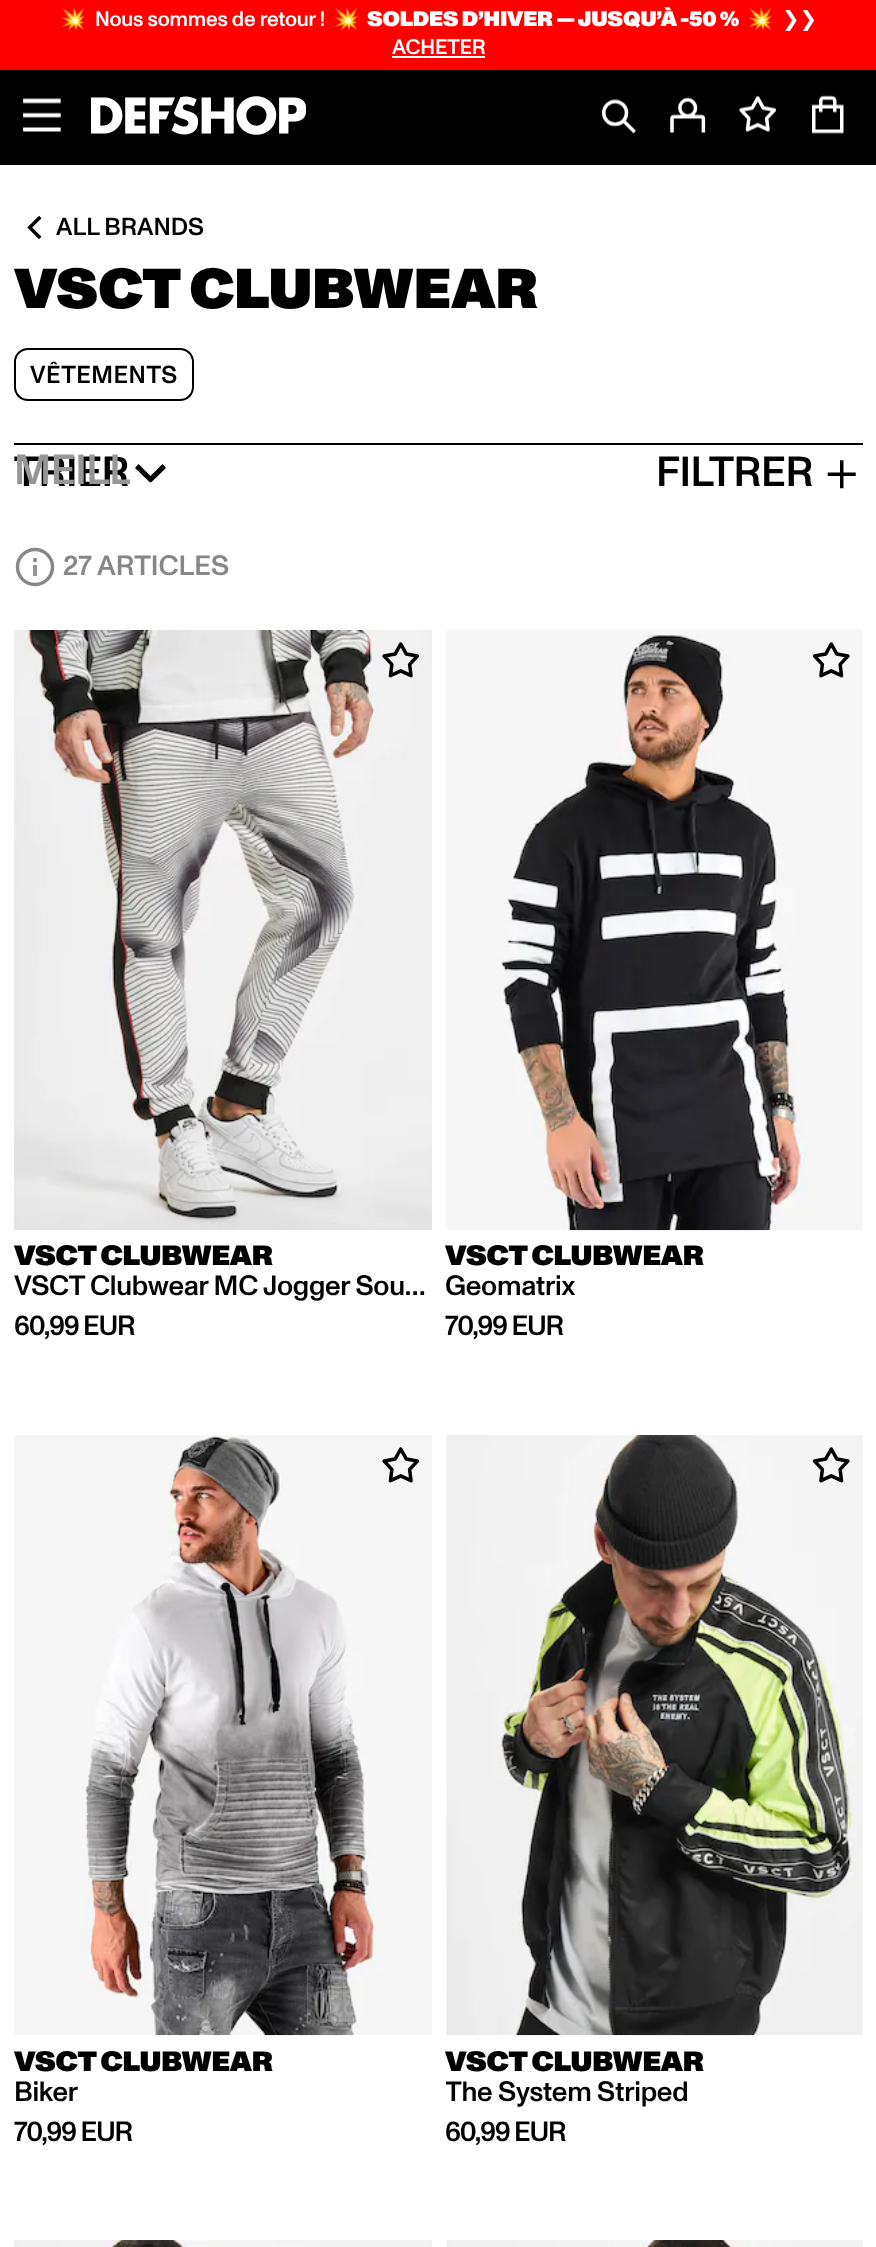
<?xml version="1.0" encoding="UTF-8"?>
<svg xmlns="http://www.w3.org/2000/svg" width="876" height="2247">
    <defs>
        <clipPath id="clip1"><rect x="14" y="452" width="116" height="42"/></clipPath>
        <clipPath id="clip2"><rect x="446" y="2076" width="417" height="31"/></clipPath>
    </defs>
    <rect width="100%" height="100%" fill="#FFFFFF"/>
    <rect x="0" y="0" width="876" height="70" fill="#FF0000"/>
    <text x="60" y="26" font-family="Noto Color Emoji" font-size="21" letter-spacing="-0.2" fill="#FFFFFF">💥</text>
    <text x="95" y="26" font-family="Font" font-size="21" font-weight="500" letter-spacing="-0.2" fill="#FFFFFF">Nous sommes de retour !</text>
    <text x="333" y="26" font-family="Noto Color Emoji" font-size="21" letter-spacing="-0.2" fill="#FFFFFF">💥</text>
    <text x="367" y="26" font-family="Font" font-size="21" font-weight="900" letter-spacing="-0.2" fill="#FFFFFF">SOLDES D’HIVER — JUSQU’À -50 %</text>
    <text x="747" y="26" font-family="Noto Color Emoji" font-size="21" letter-spacing="-0.2" fill="#FFFFFF">💥</text>
    <text x="782" y="26" font-family="DejaVu Sans" font-size="21" letter-spacing="-0.2" fill="#FFFFFF">❯❯</text>
    <text x="392" y="54" font-family="Font" font-size="21" font-weight="500" letter-spacing="-0.2" fill="#FFFFFF">ACHETER</text>
    <rect x="392" y="56" width="93" height="2" fill="#FFFFFF"/>
    <rect x="0" y="70" width="876" height="95" fill="#000000"/>
    <image x="23" y="98" width="38" height="34" href="img_01.png"/>
    <image x="91" y="96" width="215" height="39" href="img_02.png"/>
    <image x="602" y="99" width="34" height="35" href="img_03.png"/>
    <image x="670" y="97" width="36" height="36" href="img_04.png"/>
    <image x="739" y="95" width="37" height="37" href="img_05.png"/>
    <image x="812" y="95" width="32" height="39" href="img_06.png"/>
    <image x="27" y="215" width="15" height="25" href="img_07.png"/>
    <text x="56" y="235" font-family="Font" font-size="24.5" font-weight="500" fill="#000000">ALL BRANDS</text>
    <text x="14" y="308" font-family="Font" font-size="56" font-weight="900" fill="#000000">VSCT CLUBWEAR</text>
    <rect x="15" y="349" width="178" height="51" rx="13" fill="none" stroke="#000000" stroke-width="2"/>
    <text x="30" y="383" font-family="Font" font-size="24.5" font-weight="500" letter-spacing="0.5" fill="#000000">VÊTEMENTS</text>
    <rect x="14" y="443" width="849" height="2" fill="#000000"/>
    <text x="14" y="486" font-family="Font" font-size="42" font-weight="500" letter-spacing="-0.5" fill="#000000">TRIER</text>
    <g clip-path="url(#clip1)">
        <text x="14" y="484" font-family="Font" font-size="42" font-weight="500" letter-spacing="-0.5" fill="#979797">MEILL</text>
    </g>
    <path d="M 138.5 464 L 153.5 479 L 150 482.5 L 135 468 Z" fill="#000000"/>
    <path d="M 147.5 479 L 162.5 464 L 166 468 L 151 482.5 Z" fill="#000000"/>
    <text x="656" y="486" font-family="Font" font-size="42" font-weight="500" letter-spacing="-0.5" fill="#000000">FILTRER</text>
    <image x="827" y="460" width="29" height="29" href="img_08.png"/>
    <circle cx="35" cy="567" r="17.5" fill="none" stroke="#878787" stroke-width="3.5"/>
    <rect x="33" y="565" width="4" height="11" fill="#969696"/>
    <path d="M 35 558 V 562" fill="none" stroke="#878787" stroke-width="3.5"/>
    <text x="63" y="575" font-family="Font" font-size="28" font-weight="500" fill="#878787">27 ARTICLES</text>
    <image x="14" y="630" width="418" height="600" href="img_09.png"/>
    <image x="382" y="642" width="38" height="36" href="img_10.png"/>
    <text x="14" y="1265" font-family="Font" font-size="28" font-weight="900" letter-spacing="-0.25" fill="#000000">VSCT CLUBWEAR</text>
    <text x="14" y="1295" font-family="Font" font-size="28" font-weight="500" letter-spacing="-0.25" fill="#000000">VSCT Clubwear MC Jogger Sou…</text>
    <text x="14" y="1335" font-family="Font" font-size="28" font-weight="500" letter-spacing="-1.25" fill="#000000">60,99 EUR</text>
    <image x="446" y="630" width="417" height="601" href="img_11.png"/>
    <image x="812" y="642" width="38" height="36" href="img_12.png"/>
    <text x="445" y="1265" font-family="Font" font-size="28" font-weight="900" letter-spacing="-0.25" fill="#000000">VSCT CLUBWEAR</text>
    <text x="445" y="1295" font-family="Font" font-size="28" font-weight="500" letter-spacing="-0.25" fill="#000000">Geomatrix</text>
    <text x="445" y="1335" font-family="Font" font-size="28" font-weight="500" letter-spacing="-1.25" fill="#000000">70,99 EUR</text>
    <image x="14" y="1435" width="418" height="601" href="img_13.png"/>
    <image x="382" y="1447" width="38" height="36" href="img_14.png"/>
    <text x="14" y="2071" font-family="Font" font-size="28" font-weight="900" letter-spacing="-0.25" fill="#000000">VSCT CLUBWEAR</text>
    <text x="14" y="2101" font-family="Font" font-size="28" font-weight="500" letter-spacing="-0.25" fill="#000000">Biker</text>
    <text x="14" y="2141" font-family="Font" font-size="28" font-weight="500" letter-spacing="-1.25" fill="#000000">70,99 EUR</text>
    <image x="446" y="1435" width="417" height="601" href="img_15.png"/>
    <image x="812" y="1447" width="38" height="36" href="img_16.png"/>
    <text x="445" y="2071" font-family="Font" font-size="28" font-weight="900" letter-spacing="-0.25" fill="#000000">VSCT CLUBWEAR</text>
    <g clip-path="url(#clip2)">
        <text x="445" y="2101" font-family="Font" font-size="28" font-weight="500" letter-spacing="-0.25" fill="#000000">The System Striped</text>
    </g>
    <text x="445" y="2141" font-family="Font" font-size="28" font-weight="500" letter-spacing="-1.25" fill="#000000">60,99 EUR</text>
    <image x="14" y="2240" width="418" height="7" href="img_17.png"/>
    <image x="446" y="2240" width="417" height="7" href="img_18.png"/>
</svg>
